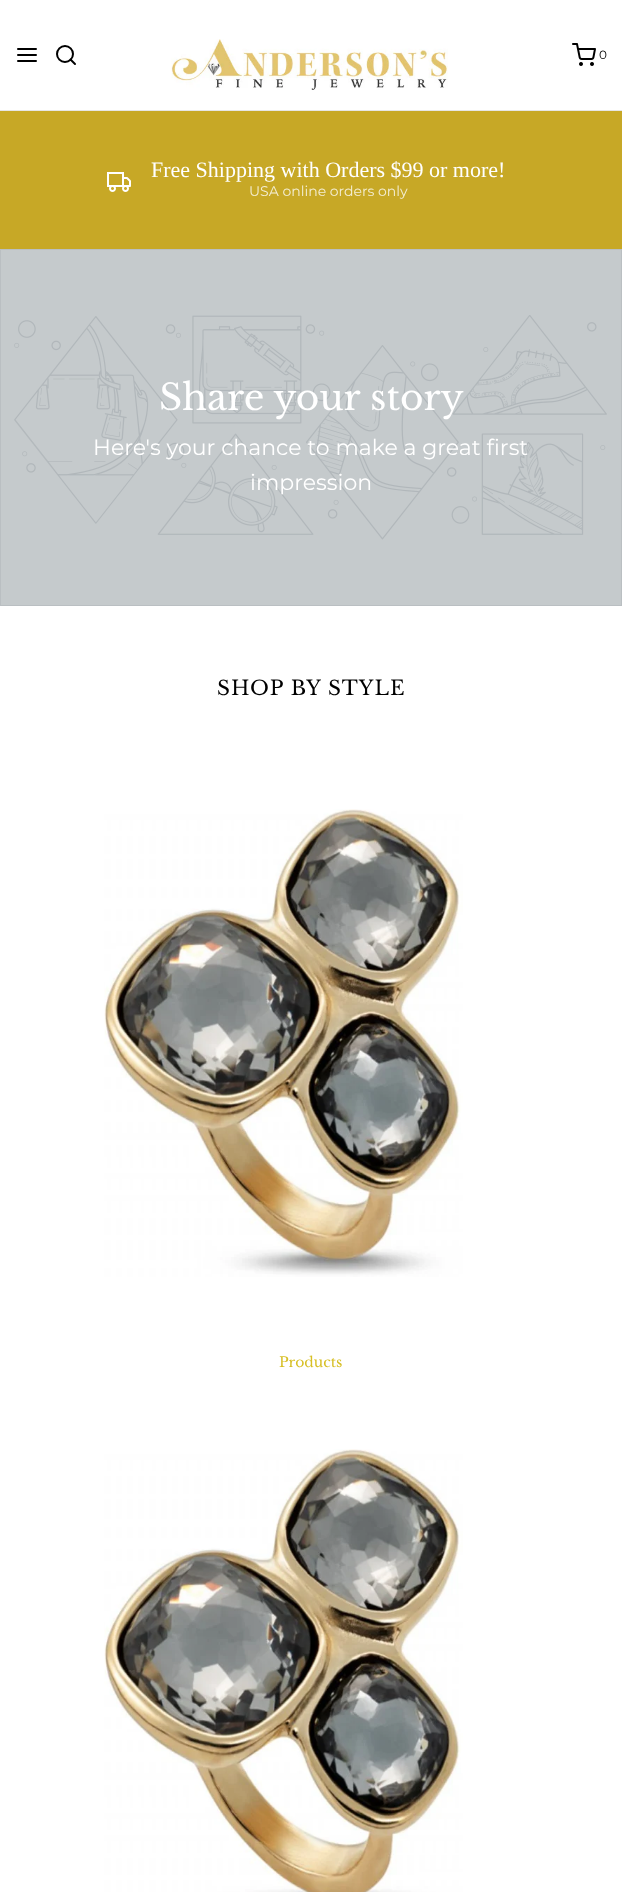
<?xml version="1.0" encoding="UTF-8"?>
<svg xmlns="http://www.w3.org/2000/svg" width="622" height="1892">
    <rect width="100%" height="100%" fill="#FFFFFF"/>
    <rect x="0" y="110" width="622" height="1" fill="#E6E6E6"/>
    <path d="M 18 55 H 36 M 18 49 H 36 M 18 61 H 36" fill="none" stroke="#000000" stroke-width="2" stroke-linecap="round" stroke-linejoin="round"/>
    <circle cx="65" cy="54" r="8" fill="none" stroke="#000000" stroke-width="2"/>
    <path d="M 75 64 L 70.5 59.5" fill="none" stroke="#000000" stroke-width="2" stroke-linecap="round" stroke-linejoin="round"/>
    <image x="171" y="39" width="277" height="51" href="img_01.png"/>
    <image x="572" y="43" width="24" height="23" href="img_02.png"/>
    <text x="599" y="59" font-family="Montserrat" font-size="12" fill="#000000">0</text>
    <rect x="0" y="111" width="622" height="138" fill="#C7A826"/>
    <image x="107" y="172" width="24" height="20" href="img_03.png"/>
    <text x="151" y="177" font-family="Liberation Serif" font-size="22" fill="#FFFFFF">Free Shipping with Orders $99 or more!</text>
    <text x="249" y="196" font-family="Montserrat" font-size="14" fill="#F4EED4">USA online orders only</text>
    <rect x="0.5" y="249.5" width="621" height="356" fill="#C5CACC" stroke="#BABFC2"/>
    <image x="14" y="315" width="593" height="225" href="img_04.png"/>
    <text x="159" y="410" font-family="Libre Baskerville" font-size="36" fill="#FFFFFF">Share your story</text>
    <text x="93" y="455" font-family="Montserrat" font-size="22" fill="#FFFFFF">Here's your chance to make a great first</text>
    <text x="250" y="490" font-family="Montserrat" font-size="22" fill="#FFFFFF">impression</text>
    <text x="217" y="695" font-family="Libre Baskerville" font-size="20" letter-spacing="1" fill="#000000">SHOP BY STYLE</text>
    <image x="104" y="809" width="359" height="468" href="img_05.png"/>
    <text x="279" y="1367" font-family="Libre Baskerville" font-size="14" fill="#D7BF24">Products</text>
    <image x="104" y="1449" width="359" height="443" href="img_06.png"/>
</svg>
